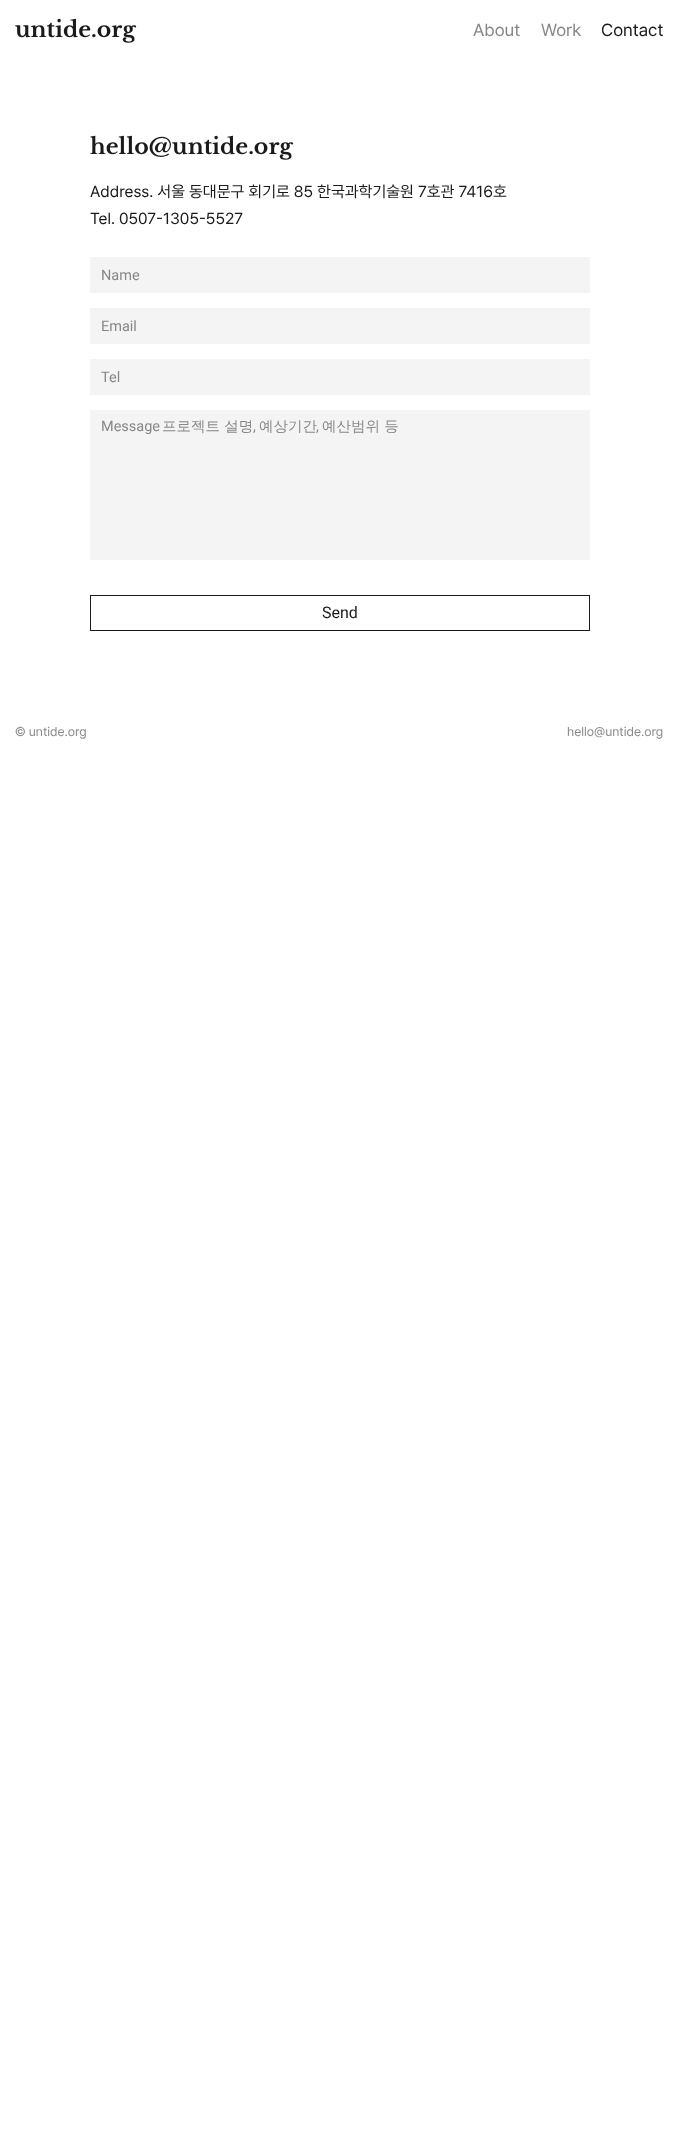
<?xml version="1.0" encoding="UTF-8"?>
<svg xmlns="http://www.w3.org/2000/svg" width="679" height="2142">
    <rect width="100%" height="100%" fill="#FFFFFF"/>
    <text x="15" y="37" font-family="Libre Baskerville" font-size="22" font-weight="700" fill="#1A1A1A">untide.org</text>
    <text x="473" y="36" font-family="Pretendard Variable" font-size="17.5" fill="#878787">About</text>
    <text x="541" y="36" font-family="Pretendard Variable" font-size="17.5" fill="#878787">Work</text>
    <text x="601" y="36" font-family="Pretendard Variable" font-size="17.5" fill="#1A1A1A">Contact</text>
    <text x="90" y="154" font-family="Libre Baskerville" font-size="22" font-weight="700" fill="#1A1A1A">hello@untide.org</text>
    <text font-family="Pretendard Variable" font-size="16" fill="#1A1A1A">
        <tspan x="90" y="197">Address. 서울 동대문구 회기로 85 한국과학기술원 7호관 7416호</tspan>
        <tspan x="90" y="224">Tel. 0507-1305-5527</tspan>
    </text>
    <rect x="90" y="257" width="500" height="36" fill="#F4F4F4"/>
    <text x="101" y="280" font-family="Roboto" font-size="14.5" fill="#878787">Name</text>
    <rect x="90" y="308" width="500" height="36" fill="#F4F4F4"/>
    <text x="101" y="331" font-family="Roboto" font-size="14.5" fill="#878787">Email</text>
    <rect x="90" y="359" width="500" height="36" fill="#F4F4F4"/>
    <text x="101" y="382" font-family="Roboto" font-size="14.5" fill="#878787">Tel</text>
    <rect x="90" y="410" width="500" height="150" fill="#F4F4F4"/>
    <text x="101" y="431" font-family="Roboto" font-size="14.5" fill="#878787">Message</text>
    <text x="162" y="431" font-family="WenQuanYi Zen Hei" font-size="14.5" font-weight="500" fill="#878787">프로젝트 설명</text>
    <text x="253" y="431" font-family="Roboto" font-size="14.5" fill="#878787">,</text>
    <text x="259" y="431" font-family="WenQuanYi Zen Hei" font-size="14.5" font-weight="500" fill="#878787">예상기간</text>
    <text x="316" y="431" font-family="Roboto" font-size="14.5" fill="#878787">,</text>
    <text x="322" y="431" font-family="WenQuanYi Zen Hei" font-size="14.5" font-weight="500" fill="#878787">예산범위 등</text>
    <rect x="90.5" y="595.5" width="499" height="35" fill="none" stroke="#1A1A1A"/>
    <text x="322" y="618" font-family="Roboto" font-size="16" fill="#1A1A1A">Send</text>
    <text x="15" y="736" font-family="Pretendard Variable" font-size="12.75" fill="#8D8D8D">© untide.org</text>
    <text x="567" y="736" font-family="Pretendard Variable" font-size="12.75" fill="#8D8D8D">hello@untide.org</text>
</svg>
